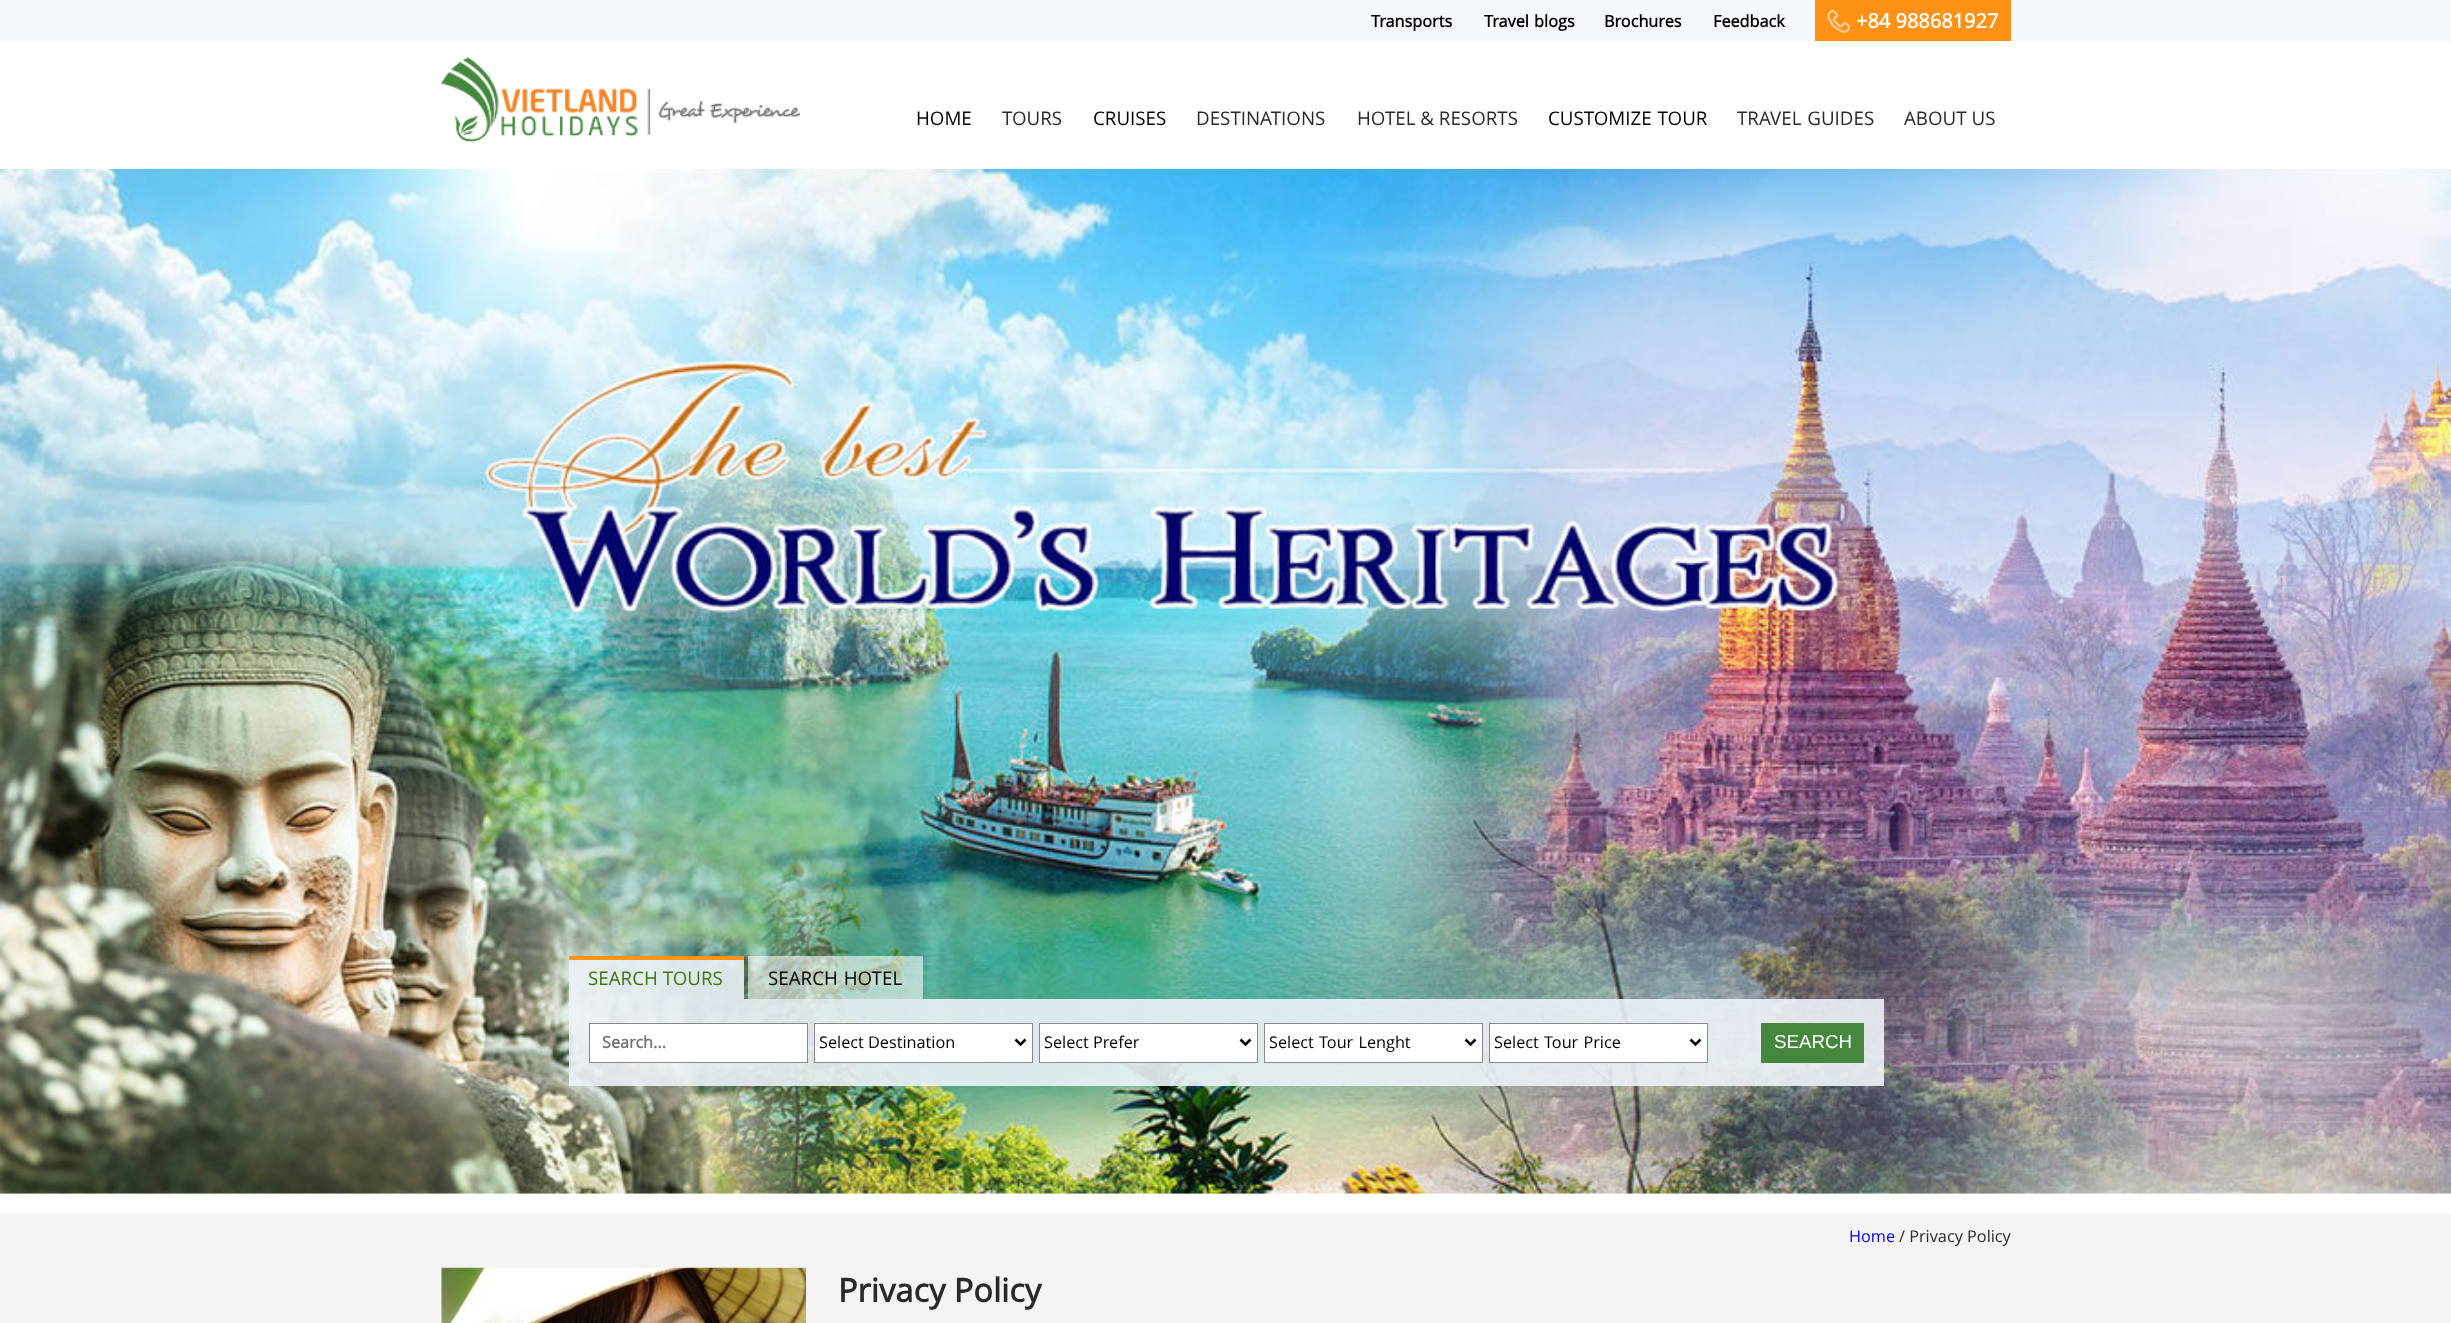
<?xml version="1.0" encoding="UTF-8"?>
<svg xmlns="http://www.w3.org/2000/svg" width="2451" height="1323">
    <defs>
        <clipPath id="clip1"><rect x="603" y="1031" width="191" height="23"/></clipPath>
    </defs>
    <rect width="100%" height="100%" fill="#FFFFFF"/>
    <rect x="0" y="0" width="2451" height="41" fill="#F5F9FD"/>
    <text x="1371" y="27" font-family="Open Sans" font-size="16.25" font-weight="700" fill="#000000">Transports</text>
    <text x="1484" y="27" word-spacing="1" font-family="Open Sans" font-size="16.25" font-weight="700" fill="#000000">Travel blogs</text>
    <text x="1604" y="27" font-family="Open Sans" font-size="16.25" font-weight="700" fill="#000000">Brochures</text>
    <text x="1713" y="27" font-family="Open Sans" font-size="16.25" font-weight="700" fill="#000000">Feedback</text>
    <rect x="1815" y="0" width="196" height="41" fill="#FF9215"/>
    <image x="1827" y="10" width="23" height="23" href="img_01.png"/>
    <text x="1856" y="28" font-family="Open Sans" font-size="20" font-weight="700" fill="#FFFFFF">+84 988681927</text>
    <image x="441" y="57" width="359" height="85" href="img_02.png"/>
    <text x="916" y="125" font-family="Open Sans" font-size="18.75" fill="#000000">HOME</text>
    <text x="1002" y="125" font-family="Open Sans" font-size="18.75" fill="#292929">TOURS</text>
    <text x="1093" y="125" font-family="Open Sans" font-size="18.75" fill="#000000">CRUISES</text>
    <text x="1196" y="125" font-family="Open Sans" font-size="18.75" fill="#292929">DESTINATIONS</text>
    <text x="1357" y="125" font-family="Open Sans" font-size="18.75" fill="#292929">HOTEL &amp; RESORTS</text>
    <text x="1548" y="125" word-spacing="1" font-family="Open Sans" font-size="18.75" fill="#000000">CUSTOMIZE TOUR</text>
    <text x="1737" y="125" word-spacing="1" font-family="Open Sans" font-size="18.75" fill="#292929">TRAVEL GUIDES</text>
    <text x="1904" y="125" font-family="Open Sans" font-size="18.75" fill="#292929">ABOUT US</text>
    <image x="0" y="169" width="2451" height="1025" href="img_03.png"/>
    <rect x="569" y="960" width="175" height="39" fill="#ECF2F7" fill-opacity="0.9"/>
    <rect x="569" y="956" width="175" height="4" fill="#FF9315"/>
    <text x="588" y="985" font-family="Open Sans" font-size="18.75" fill="#3F7410">SEARCH TOURS</text>
    <rect x="748" y="956" width="175" height="43" fill="#FFFFFF" fill-opacity="0.6"/>
    <text x="768" y="985" word-spacing="1" font-family="Open Sans" font-size="18.75" fill="#000000">SEARCH HOTEL</text>
    <rect x="569" y="999" width="1315" height="87" fill="#ECF2F7" fill-opacity="0.9"/>
    <rect x="589.5" y="1023.5" width="218" height="39" fill="#FFFFFF" stroke="#888888"/>
    <g clip-path="url(#clip1)">
        <text x="602" y="1048" font-family="Open Sans" font-size="16.25" font-weight="700" fill="#757575">Search...</text>
    </g>
    <rect x="814.5" y="1023.5" width="218" height="39" fill="#FFFFFF" stroke="#888888"/>
    <path d="M 1015.5 1039.5 L 1020.5 1044.5 L 1025.5 1039.5" fill="none" stroke="#000000" stroke-width="2.5"/>
    <text x="819" y="1048" font-family="Open Sans" font-size="16.25" fill="#000000">Select Destination</text>
    <rect x="1039.5" y="1023.5" width="218" height="39" fill="#FFFFFF" stroke="#888888"/>
    <path d="M 1240.5 1039.5 L 1245.5 1044.5 L 1250.5 1039.5" fill="none" stroke="#000000" stroke-width="2.5"/>
    <text x="1044" y="1048" font-family="Open Sans" font-size="16.25" fill="#000000">Select Prefer</text>
    <rect x="1264.5" y="1023.5" width="218" height="39" fill="#FFFFFF" stroke="#888888"/>
    <path d="M 1465.5 1039.5 L 1470.5 1044.5 L 1475.5 1039.5" fill="none" stroke="#000000" stroke-width="2.5"/>
    <text x="1269" y="1048" word-spacing="1" font-family="Open Sans" font-size="16.25" fill="#000000">Select Tour Lenght</text>
    <rect x="1489.5" y="1023.5" width="218" height="39" fill="#FFFFFF" stroke="#888888"/>
    <path d="M 1690.5 1039.5 L 1695.5 1044.5 L 1700.5 1039.5" fill="none" stroke="#000000" stroke-width="2.5"/>
    <text x="1494" y="1048" word-spacing="1" font-family="Open Sans" font-size="16.25" fill="#000000">Select Tour Price</text>
    <rect x="1761" y="1023" width="103" height="40" fill="#44883D"/>
    <text x="1774" y="1048" font-family="Liberation Sans" font-size="18.75" fill="#FFFFFF">SEARCH</text>
    <rect x="0" y="1214" width="2451" height="109" fill="#F4F4F4"/>
    <text x="1849" y="1242" font-family="Open Sans" font-size="16.25" fill="#0000EE">Home</text>
    <text x="1899" y="1242" font-family="Open Sans" font-size="16.25" fill="#292929">/ Privacy Policy</text>
    <rect x="441" y="1268" width="1" height="55" fill="#FFFFFF"/>
    <image x="441" y="1267" width="366" height="56" href="img_04.png"/>
    <text x="838" y="1302" font-family="Open Sans" font-size="32.5" font-weight="700" fill="#292929">Privacy Policy</text>
</svg>
